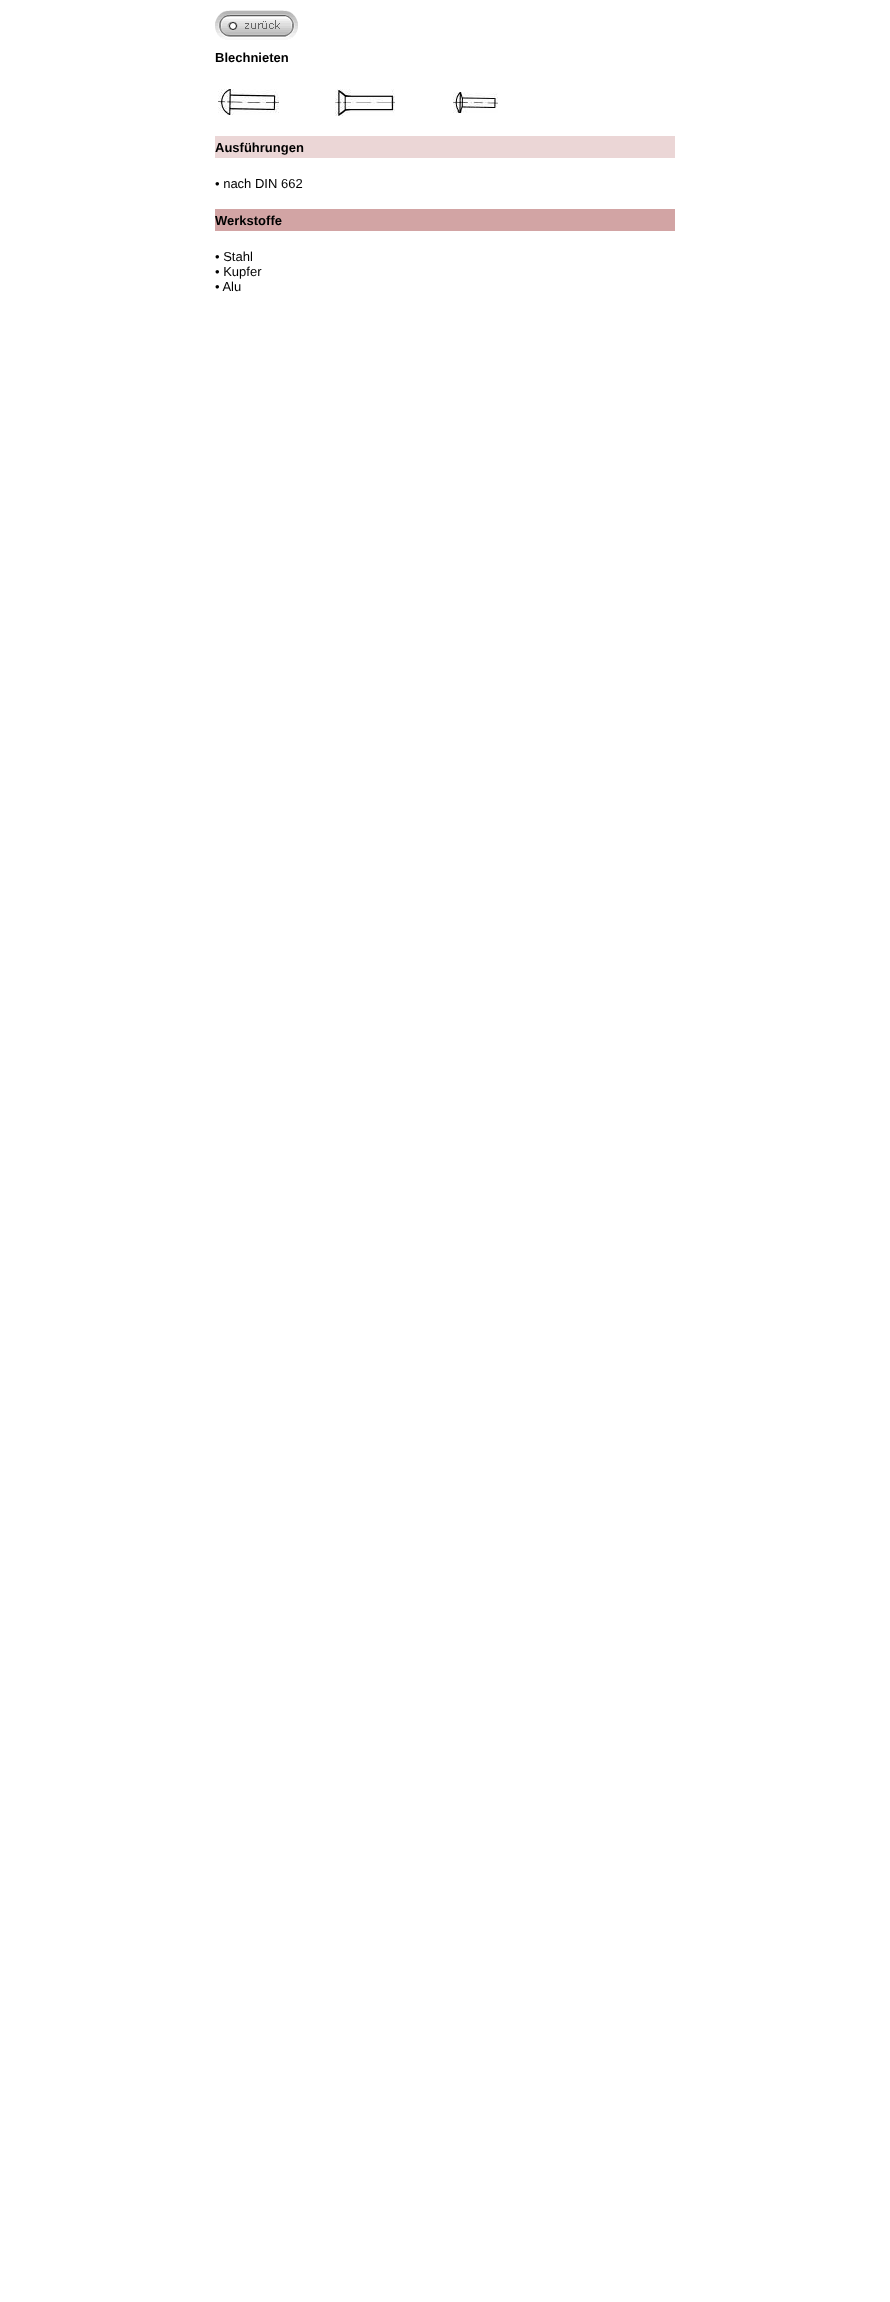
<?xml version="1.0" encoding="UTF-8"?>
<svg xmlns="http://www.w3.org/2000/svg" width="890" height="2302">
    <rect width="100%" height="100%" fill="#FFFFFF"/>
    <image x="215" y="10" width="83" height="30" href="img_01.png"/>
    <text x="215" y="62" font-family="Liberation Sans" font-size="13" font-weight="700" fill="#000000">Blechnieten</text>
    <image x="218" y="89" width="61" height="26" href="img_02.png"/>
    <image x="335" y="89" width="60" height="27" href="img_03.png"/>
    <image x="453" y="92" width="45" height="21" href="img_04.png"/>
    <rect x="215" y="136" width="460" height="22" fill="#EBD6D6"/>
    <text x="215" y="152" font-family="Liberation Sans" font-size="13" font-weight="700" fill="#000000">Ausführungen</text>
    <text x="215" y="188" font-family="Liberation Sans" font-size="13" fill="#000000">• nach DIN 662</text>
    <rect x="215" y="209" width="460" height="22" fill="#D2A4A4"/>
    <text x="215" y="225" font-family="Liberation Sans" font-size="13" font-weight="700" fill="#000000">Werkstoffe</text>
    <text font-family="Liberation Sans" font-size="13" fill="#000000">
        <tspan x="215" y="261">• Stahl</tspan>
        <tspan x="215" y="276">• Kupfer</tspan>
        <tspan x="215" y="291">• Alu</tspan>
    </text>
</svg>
